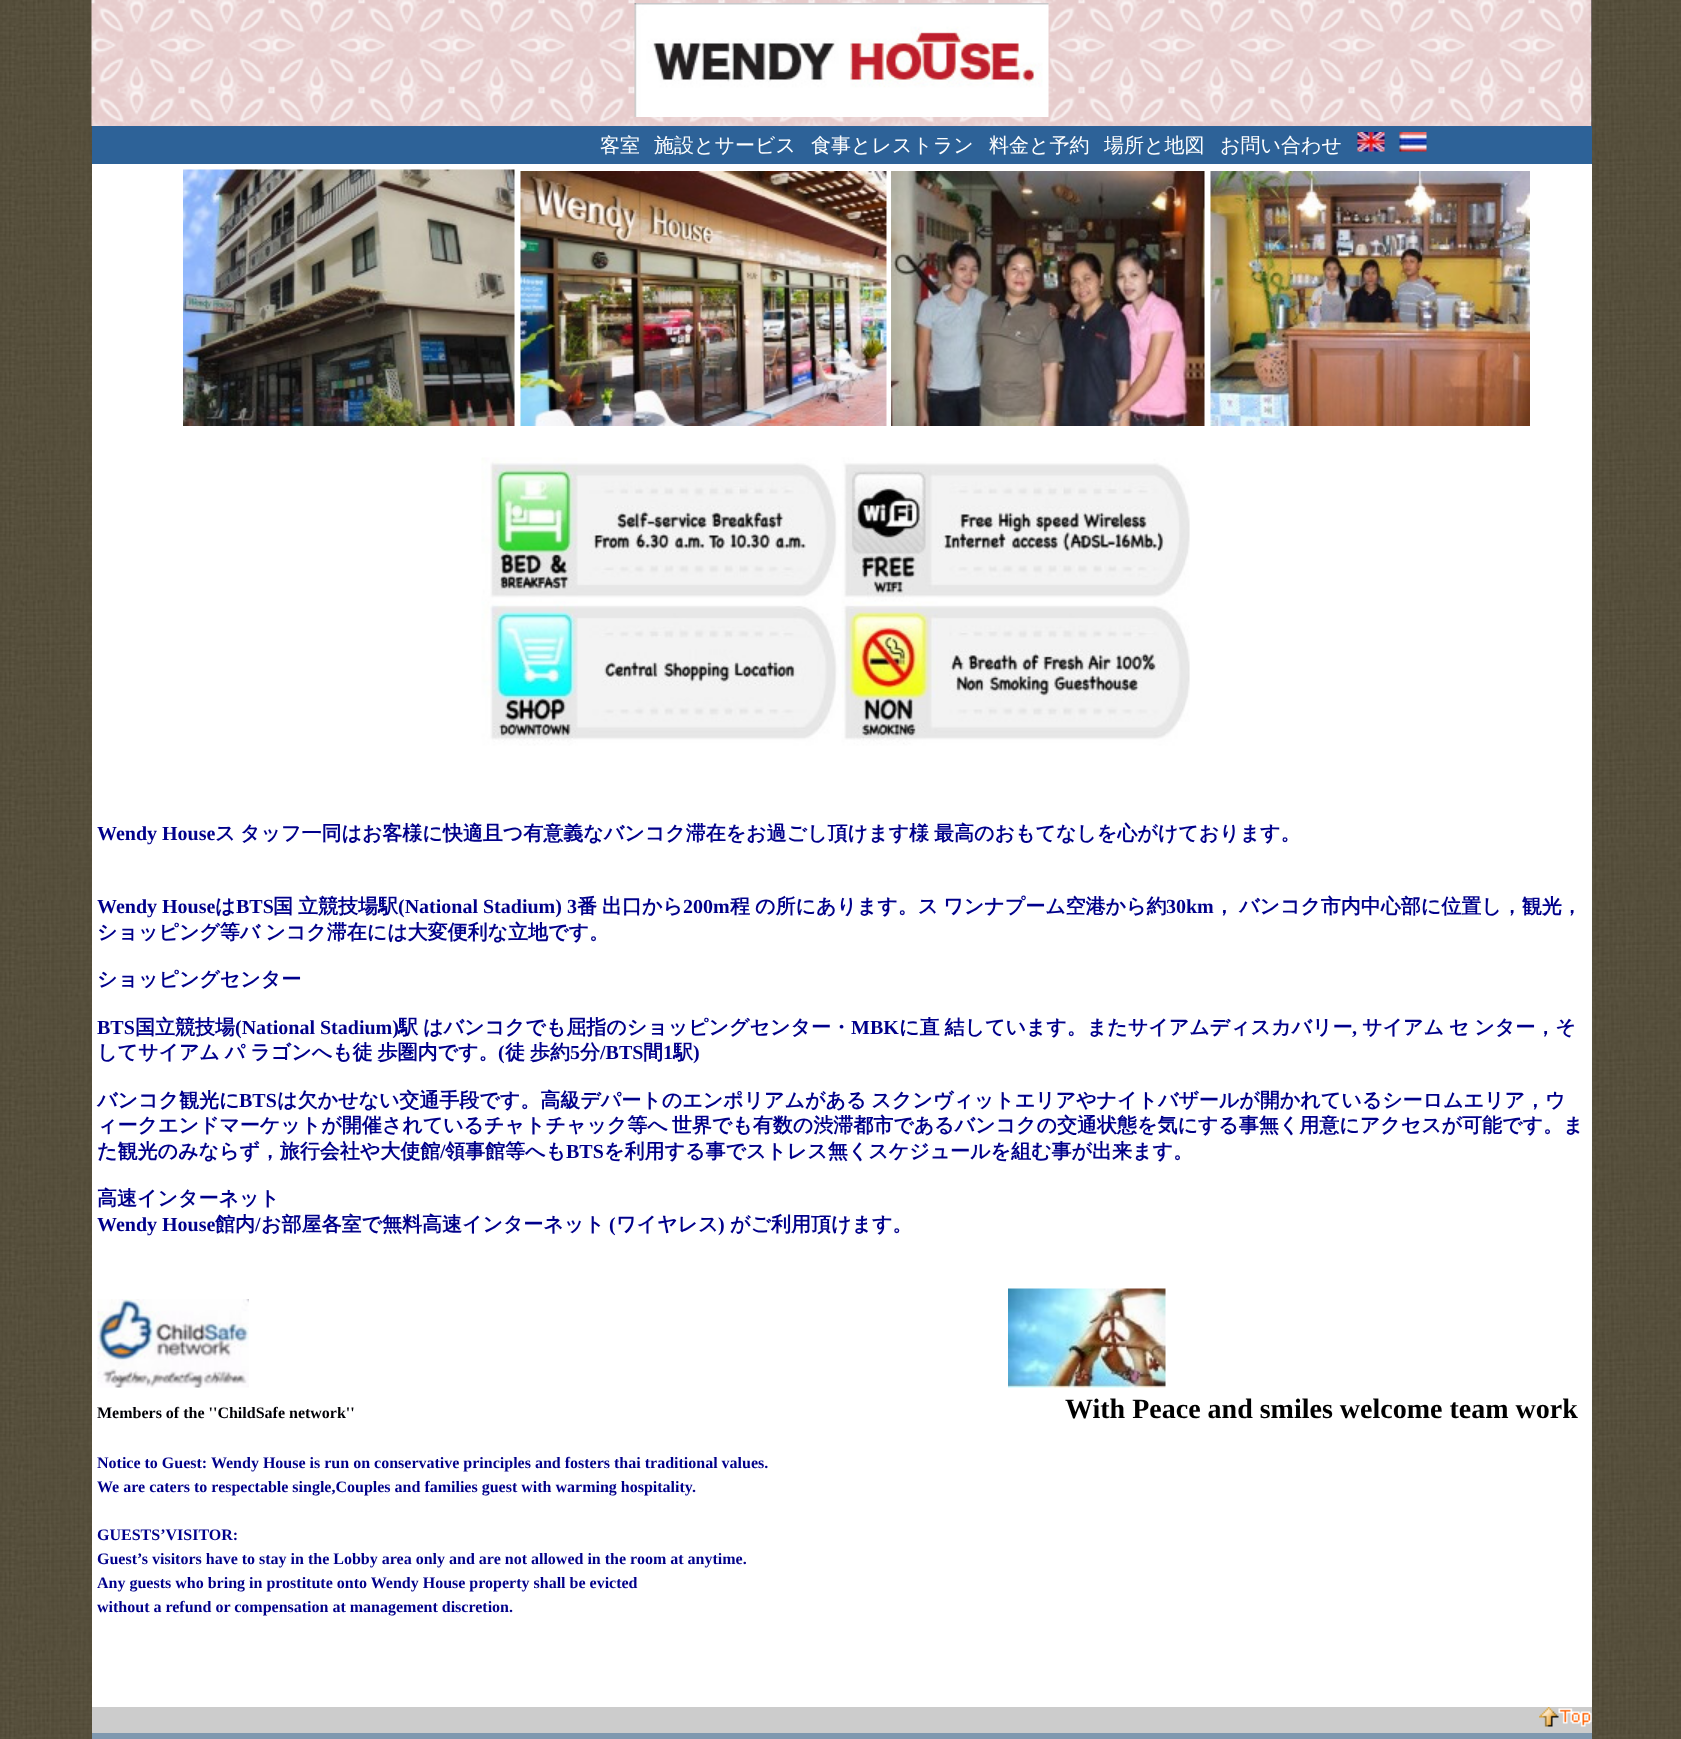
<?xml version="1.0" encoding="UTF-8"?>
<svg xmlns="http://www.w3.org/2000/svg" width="1681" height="1739">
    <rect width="100%" height="100%" fill="#FFFFFF"/>
    <image x="0" y="0" width="1681" height="1739" href="img_01.png"/>
    <rect x="1591" y="0" width="1" height="126" fill="#000000"/>
    <image x="91" y="0" width="1501" height="126" href="img_02.png"/>
    <image x="634" y="3" width="415" height="114" href="img_03.png"/>
    <rect x="92" y="126" width="1500" height="38" fill="#2D6298"/>
    <text x="600" y="152" font-family="WenQuanYi Zen Hei" font-size="20" font-weight="500" fill="#FFFFFF">客室</text>
    <text x="654" y="152" font-family="WenQuanYi Zen Hei" font-size="20" font-weight="500" fill="#FFFFFF">施設とサービス</text>
    <text x="811" y="152" font-family="WenQuanYi Zen Hei" font-size="20" font-weight="500" fill="#FFFFFF">食事とレストラン</text>
    <text x="989" y="152" font-family="WenQuanYi Zen Hei" font-size="20" font-weight="500" fill="#FFFFFF">料金と予約</text>
    <text x="1104" y="152" font-family="WenQuanYi Zen Hei" font-size="20" font-weight="500" fill="#FFFFFF">場所と地図</text>
    <text x="1220" y="152" font-family="WenQuanYi Zen Hei" font-size="20" font-weight="500" fill="#FFFFFF">お問い合わせ</text>
    <image x="1357" y="132" width="28" height="20" href="img_04.png"/>
    <image x="1399" y="132" width="28" height="20" href="img_05.png"/>
    <rect x="92" y="164" width="1500" height="1543" fill="#FFFFFF"/>
    <image x="183" y="169" width="332" height="257" href="img_06.png"/>
    <image x="520" y="171" width="367" height="255" href="img_07.png"/>
    <image x="891" y="171" width="314" height="255" href="img_08.png"/>
    <image x="1210" y="171" width="320" height="255" href="img_09.png"/>
    <image x="481" y="457" width="709" height="289" href="img_10.png"/>
    <text x="97" y="840" font-family="Liberation Serif" font-size="20" font-weight="700" fill="#00008B">Wendy House</text>
    <text x="215" y="840" font-family="WenQuanYi Zen Hei" font-size="20" font-weight="700" fill="#00008B">ス</text>
    <text x="240" y="840" font-family="WenQuanYi Zen Hei" font-size="20" font-weight="700" fill="#00008B">タッフ一同はお客様に快適且つ有意義なバンコク滞在をお過ごし頂けます様</text>
    <text x="934" y="840" font-family="WenQuanYi Zen Hei" font-size="20" font-weight="700" fill="#00008B">最高のおもてなしを心がけております。</text>
    <text x="97" y="913" font-family="Liberation Serif" font-size="20" font-weight="700" fill="#00008B">Wendy House</text>
    <text x="215" y="913" font-family="WenQuanYi Zen Hei" font-size="20" font-weight="700" fill="#00008B">は</text>
    <text x="236" y="913" font-family="Liberation Serif" font-size="20" font-weight="700" fill="#00008B">BTS</text>
    <text x="273" y="913" word-spacing="-1" font-family="WenQuanYi Zen Hei" font-size="20" font-weight="700" fill="#00008B">国 立競技場駅</text>
    <text x="398" y="913" font-family="Liberation Serif" font-size="20" font-weight="700" fill="#00008B">(National Stadium) 3</text>
    <text x="577" y="913" word-spacing="-1" font-family="WenQuanYi Zen Hei" font-size="20" font-weight="700" fill="#00008B">番 出口から</text>
    <text x="683" y="913" font-family="Liberation Serif" font-size="20" font-weight="700" fill="#00008B">200m</text>
    <text x="730" y="913" word-spacing="-1" font-family="WenQuanYi Zen Hei" font-size="20" font-weight="700" fill="#00008B">程 の所にあります。ス ワンナプーム空港から約</text>
    <text x="1166" y="913" font-family="Liberation Serif" font-size="20" font-weight="700" fill="#00008B">30km</text>
    <text x="1214" y="913" word-spacing="-1" font-family="WenQuanYi Zen Hei" font-size="20" font-weight="700" fill="#00008B">， バンコク市内中心部に位置し，観光，</text>
    <text x="97" y="939" word-spacing="-1" font-family="WenQuanYi Zen Hei" font-size="20" font-weight="700" fill="#00008B">ショッピング等バ ンコク滞在には大変便利な立地です。</text>
    <text x="97" y="986" font-family="WenQuanYi Zen Hei" font-size="20" font-weight="700" fill="#00008B">ショッピングセンター</text>
    <text x="97" y="1034" font-family="Liberation Serif" font-size="20" font-weight="700" fill="#00008B">BTS</text>
    <text x="135" y="1034" font-family="WenQuanYi Zen Hei" font-size="20" font-weight="700" fill="#00008B">国立競技場</text>
    <text x="235" y="1034" font-family="Liberation Serif" font-size="20" font-weight="700" fill="#00008B">(National Stadium)</text>
    <text x="398" y="1034" word-spacing="-1" font-family="WenQuanYi Zen Hei" font-size="20" font-weight="700" fill="#00008B">駅 はバンコクでも屈指のショッピングセンター・</text>
    <text x="851" y="1034" font-family="Liberation Serif" font-size="20" font-weight="700" fill="#00008B">MBK</text>
    <text x="899" y="1034" word-spacing="-1" font-family="WenQuanYi Zen Hei" font-size="20" font-weight="700" fill="#00008B">に直 結しています。またサイアムディスカバリー</text>
    <text x="1352" y="1034" font-family="Liberation Serif" font-size="20" font-weight="700" fill="#00008B">,</text>
    <text x="1362" y="1034" word-spacing="-1" font-family="WenQuanYi Zen Hei" font-size="20" font-weight="700" fill="#00008B">サイアム セ ンター，そ</text>
    <text x="97" y="1059" word-spacing="-1" font-family="WenQuanYi Zen Hei" font-size="20" font-weight="700" fill="#00008B">してサイアム パ ラゴンへも徒 歩圏内です。</text>
    <text x="498" y="1059" font-family="Liberation Serif" font-size="20" font-weight="700" fill="#00008B">(</text>
    <text x="505" y="1059" word-spacing="-1" font-family="WenQuanYi Zen Hei" font-size="20" font-weight="700" fill="#00008B">徒 歩約</text>
    <text x="570" y="1059" font-family="Liberation Serif" font-size="20" font-weight="700" fill="#00008B">5</text>
    <text x="580" y="1059" font-family="WenQuanYi Zen Hei" font-size="20" font-weight="700" fill="#00008B">分</text>
    <text x="600" y="1059" font-family="Liberation Serif" font-size="20" font-weight="700" fill="#00008B">/BTS</text>
    <text x="643" y="1059" font-family="WenQuanYi Zen Hei" font-size="20" font-weight="700" fill="#00008B">間</text>
    <text x="663" y="1059" font-family="Liberation Serif" font-size="20" font-weight="700" fill="#00008B">1</text>
    <text x="673" y="1059" font-family="WenQuanYi Zen Hei" font-size="20" font-weight="700" fill="#00008B">駅</text>
    <text x="693" y="1059" font-family="Liberation Serif" font-size="20" font-weight="700" fill="#00008B">)</text>
    <text x="97" y="1107" font-family="WenQuanYi Zen Hei" font-size="20" font-weight="700" fill="#00008B">バンコク観光に</text>
    <text x="239" y="1107" font-family="Liberation Serif" font-size="20" font-weight="700" fill="#00008B">BTS</text>
    <text x="277" y="1107" word-spacing="-1" font-family="WenQuanYi Zen Hei" font-size="20" font-weight="700" fill="#00008B">は欠かせない交通手段です。高級デパートのエンポリアムがある スクンヴィットエリアやナイトバザールが開かれているシーロムエリア，ウ</text>
    <text font-family="WenQuanYi Zen Hei" font-size="20" font-weight="700" fill="#00008B">
        <tspan x="97" y="1132" word-spacing="-2">ィークエンドマーケットが開催されているチャトチャック等へ 世界でも有数の渋滞都市であるバンコクの交通状態を気にする事無く用意にアクセスが可能です。ま</tspan>
        <tspan x="97" y="1158">た観光のみならず，旅行会社や大使館</tspan>
    </text>
    <text x="440" y="1158" font-family="Liberation Serif" font-size="20" font-weight="700" fill="#00008B">/</text>
    <text x="445" y="1158" font-family="WenQuanYi Zen Hei" font-size="20" font-weight="700" fill="#00008B">領事館等へも</text>
    <text x="566" y="1158" font-family="Liberation Serif" font-size="20" font-weight="700" fill="#00008B">BTS</text>
    <text x="604" y="1158" font-family="WenQuanYi Zen Hei" font-size="20" font-weight="700" fill="#00008B">を利用する事でストレス無くスケジュールを組む事が出来ます。</text>
    <text x="97" y="1205" font-family="WenQuanYi Zen Hei" font-size="20" font-weight="700" fill="#00008B">高速インターネット</text>
    <text x="97" y="1231" font-family="Liberation Serif" font-size="20" font-weight="700" fill="#00008B">Wendy House</text>
    <text x="215" y="1231" font-family="WenQuanYi Zen Hei" font-size="20" font-weight="700" fill="#00008B">館内</text>
    <text x="255" y="1231" font-family="Liberation Serif" font-size="20" font-weight="700" fill="#00008B">/</text>
    <text x="261" y="1231" font-family="WenQuanYi Zen Hei" font-size="20" font-weight="700" fill="#00008B">お部屋各室で無料高速インターネット</text>
    <text x="609" y="1231" font-family="Liberation Serif" font-size="20" font-weight="700" fill="#00008B">(</text>
    <text x="616" y="1231" font-family="WenQuanYi Zen Hei" font-size="20" font-weight="700" fill="#00008B">ワイヤレス</text>
    <text x="718" y="1231" font-family="Liberation Serif" font-size="20" font-weight="700" fill="#00008B">)</text>
    <text x="730" y="1231" font-family="WenQuanYi Zen Hei" font-size="20" font-weight="700" fill="#00008B">がご利用頂けます。</text>
    <image x="97" y="1299" width="152" height="89" href="img_11.png"/>
    <image x="1008" y="1288" width="158" height="100" href="img_12.png"/>
    <text x="97" y="1418" font-family="Liberation Serif" font-size="16" font-weight="700" fill="#000006">Members of the ''ChildSafe network''</text>
    <text x="1065" y="1418" font-family="Liberation Serif" font-size="28" font-weight="700" fill="#000000">With Peace and smiles welcome team work</text>
    <text font-family="Liberation Serif" font-size="16" font-weight="700" fill="#00008B">
        <tspan x="97" y="1468">Notice to Guest: Wendy House is run on conservative principles and fosters thai traditional values.</tspan>
        <tspan x="97" y="1492">We are caters to respectable single,Couples and families guest with warming hospitality.</tspan>
    </text>
    <text font-family="Liberation Serif" font-size="16" font-weight="700" fill="#00008B">
        <tspan x="97" y="1540">GUESTS’VISITOR:</tspan>
        <tspan x="97" y="1564">Guest’s visitors have to stay in the Lobby area only and are not allowed in the room at anytime.</tspan>
        <tspan x="97" y="1588">Any guests who bring in prostitute onto Wendy House property shall be evicted</tspan>
        <tspan x="97" y="1612">without a refund or compensation at management discretion.</tspan>
    </text>
    <rect x="92" y="1707" width="1500" height="26" fill="#CCCCCC"/>
    <image x="1539" y="1707" width="53" height="20" href="img_13.png"/>
    <rect x="92" y="1733" width="1500" height="6" fill="#7F98AF"/>
</svg>
